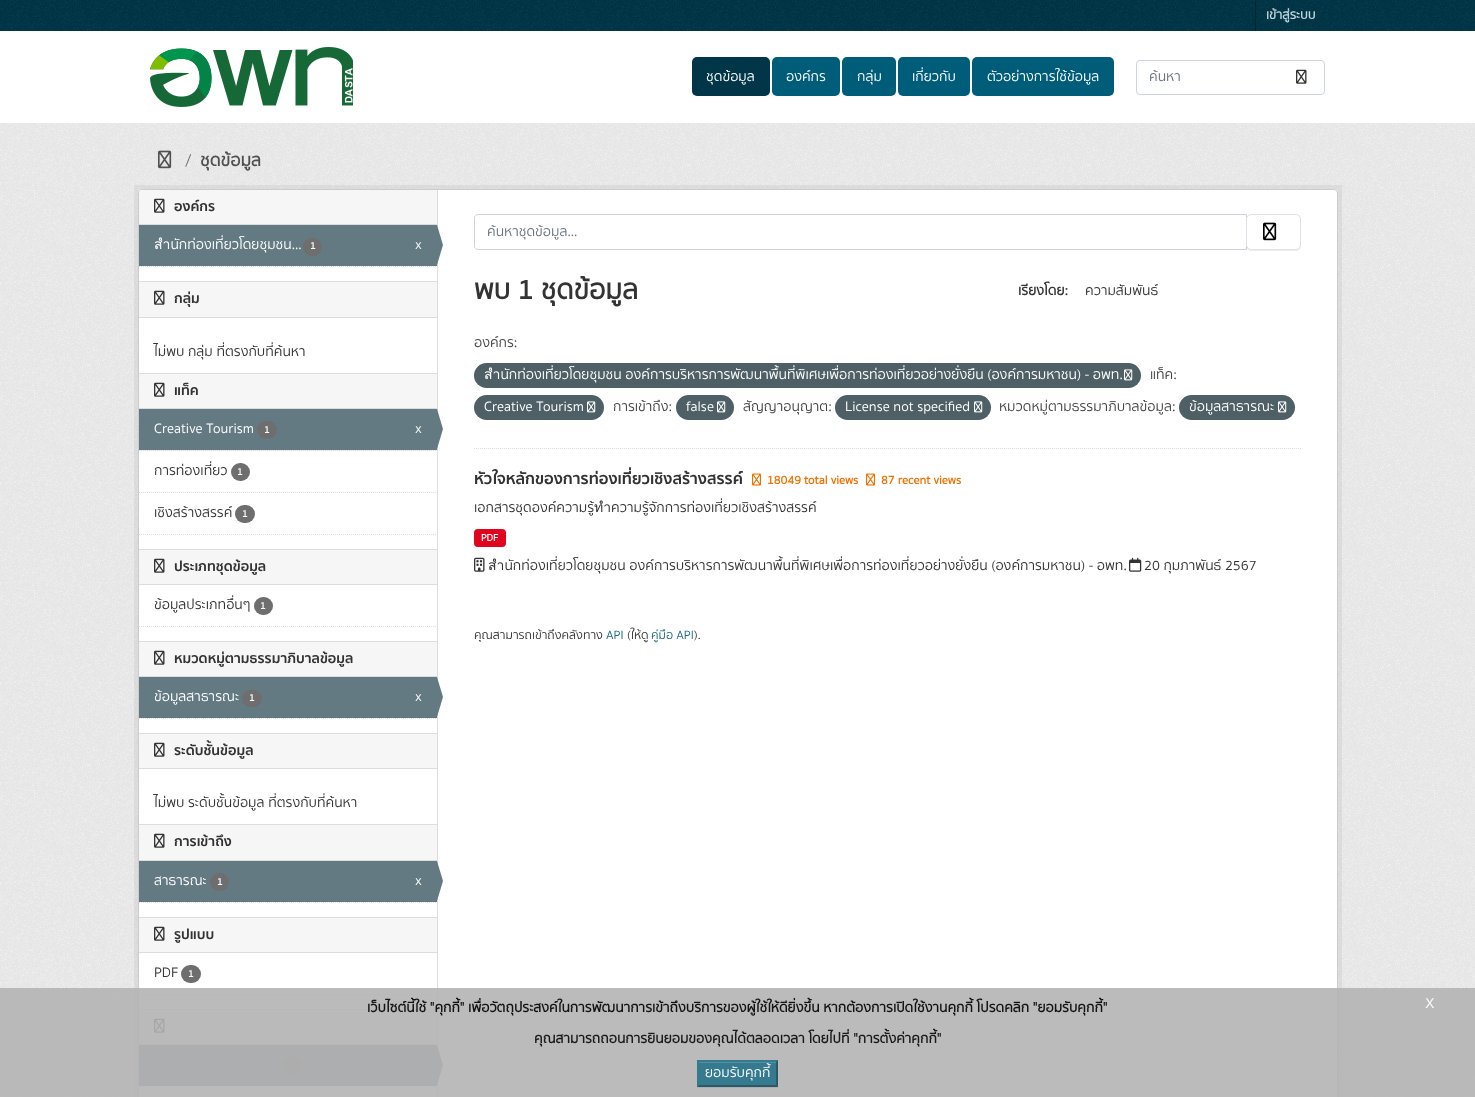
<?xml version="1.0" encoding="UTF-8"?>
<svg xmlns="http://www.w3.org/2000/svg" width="1475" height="1097">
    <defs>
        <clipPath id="clip1"><rect x="1149" y="67" width="163" height="20"/></clipPath>
        <clipPath id="clip2"><rect x="487" y="222" width="747" height="20"/></clipPath>
        <filter id="blur1" x="-50%" y="-200%" width="200%" height="500%"><feGaussianBlur stdDeviation="0.5"/></filter>
    </defs>
    <rect width="100%" height="100%" fill="#FFFFFF"/>
    <rect x="0" y="0" width="1475" height="31" fill="#003647"/>
    <image x="0" y="0" width="1475" height="31" href="img_01.png"/>
    <rect x="1255" y="0" width="1" height="31" fill="#00232E"/>
    <text x="1266" y="19" font-family="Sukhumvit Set" font-size="13" font-weight="700" fill="#BFD7DE">เข้าสู่ระบบ</text>
    <image x="150" y="47" width="203" height="60" href="img_02.png"/>
    <rect x="692" y="57" width="78" height="39" rx="5" fill="#003647"/>
    <text x="706" y="81" font-family="Sukhumvit Set" font-size="14" fill="#FFFFFF">ชุดข้อมูล</text>
    <rect x="772" y="57" width="68" height="39" rx="5" fill="#005D7A"/>
    <text x="786" y="81" font-family="Sukhumvit Set" font-size="14" fill="#FFFFFF">องค์กร</text>
    <rect x="842" y="57" width="54" height="39" rx="5" fill="#005D7A"/>
    <text x="857" y="81" font-family="Sukhumvit Set" font-size="14" fill="#FFFFFF">กลุ่ม</text>
    <rect x="898" y="57" width="72" height="39" rx="5" fill="#005D7A"/>
    <text x="912" y="81" font-family="Sukhumvit Set" font-size="14" fill="#FFFFFF">เกี่ยวกับ</text>
    <rect x="972" y="57" width="142" height="39" rx="5" fill="#005D7A"/>
    <text x="987" y="81" font-family="Sukhumvit Set" font-size="14" fill="#FFFFFF">ตัวอย่างการใช้ข้อมูล</text>
    <rect x="1136.5" y="60.5" width="188" height="34" rx="3.5" fill="none" stroke="#CED4DA"/>
    <g clip-path="url(#clip1)">
        <text x="1149" y="81" font-family="Sukhumvit Set" font-size="14" fill="#6C757D">ค้นหา</text>
    </g>
    <image x="1296" y="69" width="11" height="15" href="img_03.png"/>
    <rect x="0" y="123" width="1475" height="974" fill="#EEEEEE"/>
    <image x="0" y="123" width="1475" height="974" href="img_04.png"/>
    <image x="158" y="150" width="14" height="19" href="img_05.png"/>
    <text x="185" y="166" font-family="Sukhumvit Set" font-size="17.5" fill="#6C757D">/</text>
    <text x="200" y="166" font-family="Sukhumvit Set" font-size="17.5" font-weight="700" fill="#505050">ชุดข้อมูล</text>
    <rect x="136" y="187" width="1204" height="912" fill="none" stroke="#000000" stroke-opacity="0.05" stroke-width="4"/>
    <rect x="138.5" y="189.5" width="1199" height="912" rx="3.5" fill="#FFFFFF" stroke="#CCCCCC"/>
    <path d="M 142 190 H 437 V 225 H 139 V 193 C 139 191.5 140.5 190 142 190 Z" fill="#F6F6F6"/>
    <rect x="139" y="224" width="298" height="1" fill="#DDDDDD"/>
    <image x="154" y="198" width="11" height="15" href="img_06.png"/>
    <text x="174" y="211" font-family="'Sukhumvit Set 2'" font-size="14" font-weight="700" fill="#333333">องค์กร</text>
    <rect x="139" y="225" width="298" height="41" fill="#647A82"/>
    <text x="154" y="249" font-family="Sukhumvit Set" font-size="14" fill="#FFFFFF">สำนักท่องเที่ยวโดยชุมชน...</text>
    <rect x="303" y="238" width="19" height="18" rx="9" fill="#6E6E6E"/>
    <text x="310" y="249" font-family="Sukhumvit Set" font-size="10" font-weight="700" fill="#FFFFFF">1</text>
    <text x="415" y="249" font-family="Sukhumvit Set" font-size="14" fill="#FFFFFF">x</text>
    <rect x="437" y="190" width="1" height="907" fill="#DDDDDD"/>
    <path d="M 437 265 V 225 L 443 245 Z" fill="#647A82"/>
    <path d="M 139 266.5 H 437" fill="none" stroke="#DDDDDD" stroke-dasharray="1 1"/>
    <rect x="139" y="282" width="298" height="35" fill="#F6F6F6"/>
    <rect x="139" y="281" width="298" height="1" fill="#DDDDDD"/>
    <rect x="139" y="317" width="298" height="1" fill="#DDDDDD"/>
    <image x="154" y="290" width="11" height="15" href="img_06.png"/>
    <text x="174" y="303" font-family="'Sukhumvit Set 2'" font-size="14" font-weight="700" fill="#333333">กลุ่ม</text>
    <text x="154" y="356" font-family="Sukhumvit Set" font-size="14" fill="#333333">ไม่พบ กลุ่ม ที่ตรงกับที่ค้นหา</text>
    <rect x="139" y="374" width="298" height="34" fill="#F6F6F6"/>
    <rect x="139" y="373" width="298" height="1" fill="#DDDDDD"/>
    <rect x="139" y="408" width="298" height="1" fill="#DDDDDD"/>
    <image x="154" y="382" width="11" height="15" href="img_06.png"/>
    <text x="174" y="395" font-family="'Sukhumvit Set 2'" font-size="14" font-weight="700" fill="#333333">แท็ค</text>
    <rect x="140" y="450" width="297" height="1" fill="#F6F6F6"/>
    <path d="M 139 450.5 H 437" fill="none" stroke="#DDDDDD" stroke-dasharray="1 1"/>
    <rect x="139" y="409" width="298" height="41" fill="#647A82"/>
    <text x="154" y="433" font-family="Sukhumvit Set" font-size="14" fill="#FFFFFF">Creative Tourism</text>
    <rect x="257" y="421" width="20" height="18" rx="9" fill="#6E6E6E"/>
    <text x="264" y="433" font-family="Sukhumvit Set" font-size="10" font-weight="700" fill="#FFFFFF">1</text>
    <text x="415" y="433" font-family="Sukhumvit Set" font-size="14" fill="#FFFFFF">x</text>
    <path d="M 437 449 V 409 L 443 429 Z" fill="#647A82"/>
    <path d="M 139 492.5 H 437" fill="none" stroke="#DDDDDD" stroke-dasharray="1 1"/>
    <text x="154" y="475" font-family="Sukhumvit Set" font-size="14" fill="#333333">การท่องเที่ยว</text>
    <rect x="231" y="463" width="19" height="18" rx="9" fill="#6E6E6E"/>
    <text x="237" y="475" font-family="Sukhumvit Set" font-size="10" font-weight="700" fill="#FFFFFF">1</text>
    <text x="154" y="517" font-family="Sukhumvit Set" font-size="14" fill="#333333">เชิงสร้างสรรค์</text>
    <rect x="235" y="505" width="20" height="18" rx="9" fill="#6E6E6E"/>
    <text x="242" y="517" font-family="Sukhumvit Set" font-size="10" font-weight="700" fill="#FFFFFF">1</text>
    <path d="M 139 534.5 H 437" fill="none" stroke="#DDDDDD" stroke-dasharray="1 1"/>
    <rect x="139" y="550" width="298" height="34" fill="#F6F6F6"/>
    <rect x="139" y="549" width="298" height="1" fill="#DDDDDD"/>
    <rect x="139" y="584" width="298" height="1" fill="#DDDDDD"/>
    <image x="154" y="558" width="11" height="15" href="img_06.png"/>
    <text x="174" y="571" font-family="'Sukhumvit Set 2'" font-size="14" font-weight="700" fill="#333333">ประเภทชุดข้อมูล</text>
    <text x="154" y="609" font-family="Sukhumvit Set" font-size="14" fill="#333333">ข้อมูลประเภทอื่นๆ</text>
    <rect x="254" y="597" width="19" height="18" rx="9" fill="#6E6E6E"/>
    <text x="260" y="609" font-family="Sukhumvit Set" font-size="10" font-weight="700" fill="#FFFFFF">1</text>
    <path d="M 139 626.5 H 437" fill="none" stroke="#DDDDDD" stroke-dasharray="1 1"/>
    <rect x="139" y="642" width="298" height="34" fill="#F6F6F6"/>
    <rect x="139" y="641" width="298" height="1" fill="#DDDDDD"/>
    <rect x="139" y="676" width="298" height="1" fill="#DDDDDD"/>
    <image x="154" y="650" width="11" height="15" href="img_06.png"/>
    <text x="174" y="663" font-family="'Sukhumvit Set 2'" font-size="14" font-weight="700" fill="#333333">หมวดหมู่ตามธรรมาภิบาลข้อมูล</text>
    <rect x="139" y="677" width="298" height="41" fill="#647A82"/>
    <text x="154" y="701" font-family="Sukhumvit Set" font-size="14" fill="#FFFFFF">ข้อมูลสาธารณะ</text>
    <rect x="242" y="690" width="20" height="17" rx="8.5" fill="#6E6E6E"/>
    <text x="249" y="701" font-family="Sukhumvit Set" font-size="10" font-weight="700" fill="#FFFFFF">1</text>
    <text x="415" y="701" font-family="Sukhumvit Set" font-size="14" fill="#FFFFFF">x</text>
    <path d="M 437 717 V 677 L 443 697 Z" fill="#647A82"/>
    <path d="M 139 718.5 H 437" fill="none" stroke="#DDDDDD" stroke-dasharray="1 1"/>
    <rect x="139" y="734" width="298" height="34" fill="#F6F6F6"/>
    <rect x="139" y="733" width="298" height="1" fill="#DDDDDD"/>
    <rect x="139" y="768" width="298" height="1" fill="#DDDDDD"/>
    <image x="154" y="742" width="11" height="15" href="img_06.png"/>
    <text x="174" y="755" font-family="'Sukhumvit Set 2'" font-size="14" font-weight="700" fill="#333333">ระดับชั้นข้อมูล</text>
    <text x="154" y="807" font-family="Sukhumvit Set" font-size="14" fill="#333333">ไม่พบ ระดับชั้นข้อมูล ที่ตรงกับที่ค้นหา</text>
    <rect x="139" y="825" width="298" height="35" fill="#F6F6F6"/>
    <rect x="139" y="824" width="298" height="1" fill="#DDDDDD"/>
    <rect x="139" y="860" width="298" height="1" fill="#DDDDDD"/>
    <image x="154" y="833" width="11" height="15" href="img_06.png"/>
    <text x="174" y="846" font-family="'Sukhumvit Set 2'" font-size="14" font-weight="700" fill="#333333">การเข้าถึง</text>
    <rect x="139" y="861" width="298" height="41" fill="#647A82"/>
    <text x="154" y="885" font-family="Sukhumvit Set" font-size="14" fill="#FFFFFF">สาธารณะ</text>
    <rect x="210" y="873" width="19" height="18" rx="9" fill="#6E6E6E"/>
    <text x="217" y="885" font-family="Sukhumvit Set" font-size="10" font-weight="700" fill="#FFFFFF">1</text>
    <text x="415" y="885" font-family="Sukhumvit Set" font-size="14" fill="#FFFFFF">x</text>
    <path d="M 437 901 V 861 L 443 881 Z" fill="#647A82"/>
    <path d="M 139 902.5 H 437" fill="none" stroke="#DDDDDD" stroke-dasharray="1 1"/>
    <rect x="139" y="918" width="298" height="34" fill="#F6F6F6"/>
    <rect x="139" y="917" width="298" height="1" fill="#DDDDDD"/>
    <rect x="139" y="952" width="298" height="1" fill="#DDDDDD"/>
    <image x="154" y="926" width="11" height="15" href="img_06.png"/>
    <text x="174" y="939" font-family="'Sukhumvit Set 2'" font-size="14" font-weight="700" fill="#333333">รูปแบบ</text>
    <text x="154" y="977" font-family="Sukhumvit Set" font-size="14" fill="#333333">PDF</text>
    <rect x="181" y="965" width="20" height="18" rx="9" fill="#6E6E6E"/>
    <text x="188" y="977" font-family="Sukhumvit Set" font-size="10" font-weight="700" fill="#FFFFFF">1</text>
    <path d="M 139 994.5 H 437" fill="none" stroke="#DDDDDD" stroke-dasharray="1 1"/>
    <rect x="139" y="1010" width="298" height="34" fill="#F6F6F6"/>
    <rect x="139" y="1009" width="298" height="1" fill="#DDDDDD"/>
    <rect x="139" y="1044" width="298" height="1" fill="#DDDDDD"/>
    <image x="154" y="1018" width="11" height="15" href="img_06.png"/>
    <rect x="139" y="1045" width="298" height="41" fill="#647A82"/>
    <rect x="282" y="1057" width="20" height="18" rx="9" fill="#6E6E6E"/>
    <path d="M 437 1085 V 1045 L 443 1065 Z" fill="#647A82"/>
    <path d="M 139 1086.5 H 437" fill="none" stroke="#DDDDDD" stroke-dasharray="1 1"/>
    <path d="M 474 448.5 H 1301" fill="none" stroke="#DDDDDD" stroke-dasharray="1 1"/>
    <path d="M 478 214.5 H 1246.5 V 249.5 H 478 C 476 249.5 474.5 248 474.5 246 V 218 C 474.5 216 476 214.5 478 214.5 Z" fill="none" stroke="#CED4DA"/>
    <g clip-path="url(#clip2)">
        <text x="487" y="236" font-family="Sukhumvit Set" font-size="14" fill="#6C757D">ค้นหาชุดข้อมูล...</text>
    </g>
    <rect x="1246" y="215" width="55" height="36" rx="5" fill="#000000" fill-opacity="0.07" filter="url(#blur1)"/>
    <rect x="1246.5" y="214.5" width="54" height="35" rx="4.5" fill="#FFFFFF" stroke="#DEE2E6"/>
    <image x="1263" y="222" width="14" height="19" href="img_07.png"/>
    <text x="474" y="299" font-family="Sukhumvit Set" font-size="28" font-weight="700" fill="#333333">พบ 1 ชุดข้อมูล</text>
    <text x="1018" y="295" font-family="Sukhumvit Set" font-size="14" font-weight="700" fill="#333333">เรียงโดย:</text>
    <text x="1085" y="295" font-family="Sukhumvit Set" font-size="14" fill="#333333">ความสัมพันธ์</text>
    <text x="474" y="347" font-family="Sukhumvit Set" font-size="14" fill="#444444">องค์กร:</text>
    <rect x="474" y="363" width="667" height="25" rx="12.5" fill="#4E5F65"/>
    <text x="484" y="379" font-family="Sukhumvit Set" font-size="14" fill="#FFFFFF">สำนักท่องเที่ยวโดยชุมชน องค์การบริหารการพัฒนาพื้นที่พิเศษเพื่อการท่องเที่ยวอย่างยั่งยืน (องค์การมหาชน) - อพท.</text>
    <image x="1124" y="369" width="9" height="12" href="img_08.png"/>
    <text x="1150" y="379" font-family="Sukhumvit Set" font-size="14" fill="#444444">แท็ค:</text>
    <rect x="474" y="395" width="130" height="25" rx="12.5" fill="#4E5F65"/>
    <text x="484" y="411" font-family="Sukhumvit Set" font-size="14" fill="#FFFFFF">Creative Tourism</text>
    <image x="587" y="401" width="9" height="12" href="img_08.png"/>
    <text x="613" y="411" font-family="Sukhumvit Set" font-size="14" fill="#444444">การเข้าถึง:</text>
    <rect x="676" y="395" width="58" height="25" rx="12.5" fill="#4E5F65"/>
    <text x="686" y="411" font-family="Sukhumvit Set" font-size="14" fill="#FFFFFF">false</text>
    <image x="717" y="401" width="9" height="12" href="img_08.png"/>
    <text x="743" y="411" font-family="Sukhumvit Set" font-size="14" fill="#444444">สัญญาอนุญาต:</text>
    <rect x="835" y="395" width="156" height="25" rx="12.5" fill="#4E5F65"/>
    <text x="845" y="411" font-family="Sukhumvit Set" font-size="14" fill="#FFFFFF">License not specified</text>
    <image x="974" y="401" width="9" height="12" href="img_08.png"/>
    <text x="999" y="411" font-family="Sukhumvit Set" font-size="14" fill="#444444">หมวดหมู่ตามธรรมาภิบาลข้อมูล:</text>
    <rect x="1179" y="395" width="116" height="25" rx="12.5" fill="#4E5F65"/>
    <text x="1189" y="411" font-family="Sukhumvit Set" font-size="14" fill="#FFFFFF">ข้อมูลสาธารณะ</text>
    <image x="1278" y="401" width="9" height="12" href="img_08.png"/>
    <text x="474" y="484" font-family="'Sukhumvit Set 2'" font-size="16" font-weight="700" fill="#333333">หัวใจหลักของการท่องเที่ยวเชิงสร้างสรรค์</text>
    <image x="752" y="473" width="9" height="13" href="img_09.png"/>
    <text x="767" y="484" font-family="Sukhumvit Set" font-size="12" font-weight="700" fill="#EF7100">18049 total views</text>
    <image x="866" y="473" width="9" height="13" href="img_09.png"/>
    <text x="881" y="484" font-family="Sukhumvit Set" font-size="12" font-weight="700" fill="#EF7100">87 recent views</text>
    <text x="474" y="512" font-family="Sukhumvit Set" font-size="14" fill="#333333">เอกสารชุดองค์ความรู้ทำความรู้จักการท่องเที่ยวเชิงสร้างสรรค์</text>
    <rect x="474" y="529" width="32" height="18" rx="4" fill="#E0051E"/>
    <text x="481" y="541" font-family="Sukhumvit Set" font-size="10" font-weight="700" fill="#FFFFFF">PDF</text>
    <image x="474" y="557" width="11" height="15" href="img_10.png"/>
    <text x="488" y="570" font-family="Sukhumvit Set" font-size="14" fill="#333333">สำนักท่องเที่ยวโดยชุมชน องค์การบริหารการพัฒนาพื้นที่พิเศษเพื่อการท่องเที่ยวอย่างยั่งยืน (องค์การมหาชน) - อพท.</text>
    <image x="1129" y="557" width="13" height="15" href="img_11.png"/>
    <text x="1144" y="570" font-family="Sukhumvit Set" font-size="14" fill="#333333">20 กุมภาพันธ์ 2567</text>
    <text x="474" y="639" font-family="Sukhumvit Set" font-size="12.25" fill="#333333">คุณสามารถเข้าถึงคลังทาง</text>
    <text x="606" y="639" font-family="Sukhumvit Set" font-size="12.25" fill="#206B82">API</text>
    <text x="627" y="639" font-family="Sukhumvit Set" font-size="12.25" fill="#333333">(ให้ดู</text>
    <text x="651" y="639" font-family="Sukhumvit Set" font-size="12.25" fill="#206B82">คู่มือ API</text>
    <text x="694" y="639" font-family="Sukhumvit Set" font-size="12.25" fill="#333333">).</text>
    <rect x="0" y="988" width="1475" height="109" fill="#B5B4B4" fill-opacity="0.9"/>
    <text x="367" y="1012" font-family="Sukhumvit Set" font-size="14" font-weight="700" fill="#131313">เว็บไซต์นี้ใช้ "คุกกี้" เพื่อวัตถุประสงค์ในการพัฒนาการเข้าถึงบริการของผู้ใช้ให้ดียิ่งขึ้น หากต้องการเปิดใช้งานคุกกี้ โปรดคลิก "ยอมรับคุกกี้"</text>
    <text x="1425" y="1008" font-family="Sukhumvit Set" font-size="20" fill="#F8F8F8">x</text>
    <text x="534" y="1043" font-family="Sukhumvit Set" font-size="14" font-weight="700" fill="#1A1A1A">คุณสามารถถอนการยินยอมของคุณได้ตลอดเวลา โดยไปที่ "การตั้งค่าคุกกี้"</text>
    <rect x="697" y="1061" width="81" height="27" fill="#1A1A1A" fill-opacity="0.07" filter="url(#blur1)"/>
    <rect x="697" y="1060" width="81" height="27" fill="#367A8F"/>
    <rect x="699" y="1062" width="77" height="1" fill="#548EA0"/>
    <path d="M 778 1060 V 1087 L 776 1085 V 1062 Z" fill="#2C5968"/>
    <path d="M 778 1087 H 697 L 699 1085 H 776 Z" fill="#2C5968"/>
    <path d="M 697 1087 V 1060 L 699 1062 V 1085 Z" fill="#367A8F"/>
    <text x="705" y="1077" font-family="Sukhumvit Set" font-size="14" fill="#FFFFFF">ยอมรับคุกกี้</text>
</svg>
